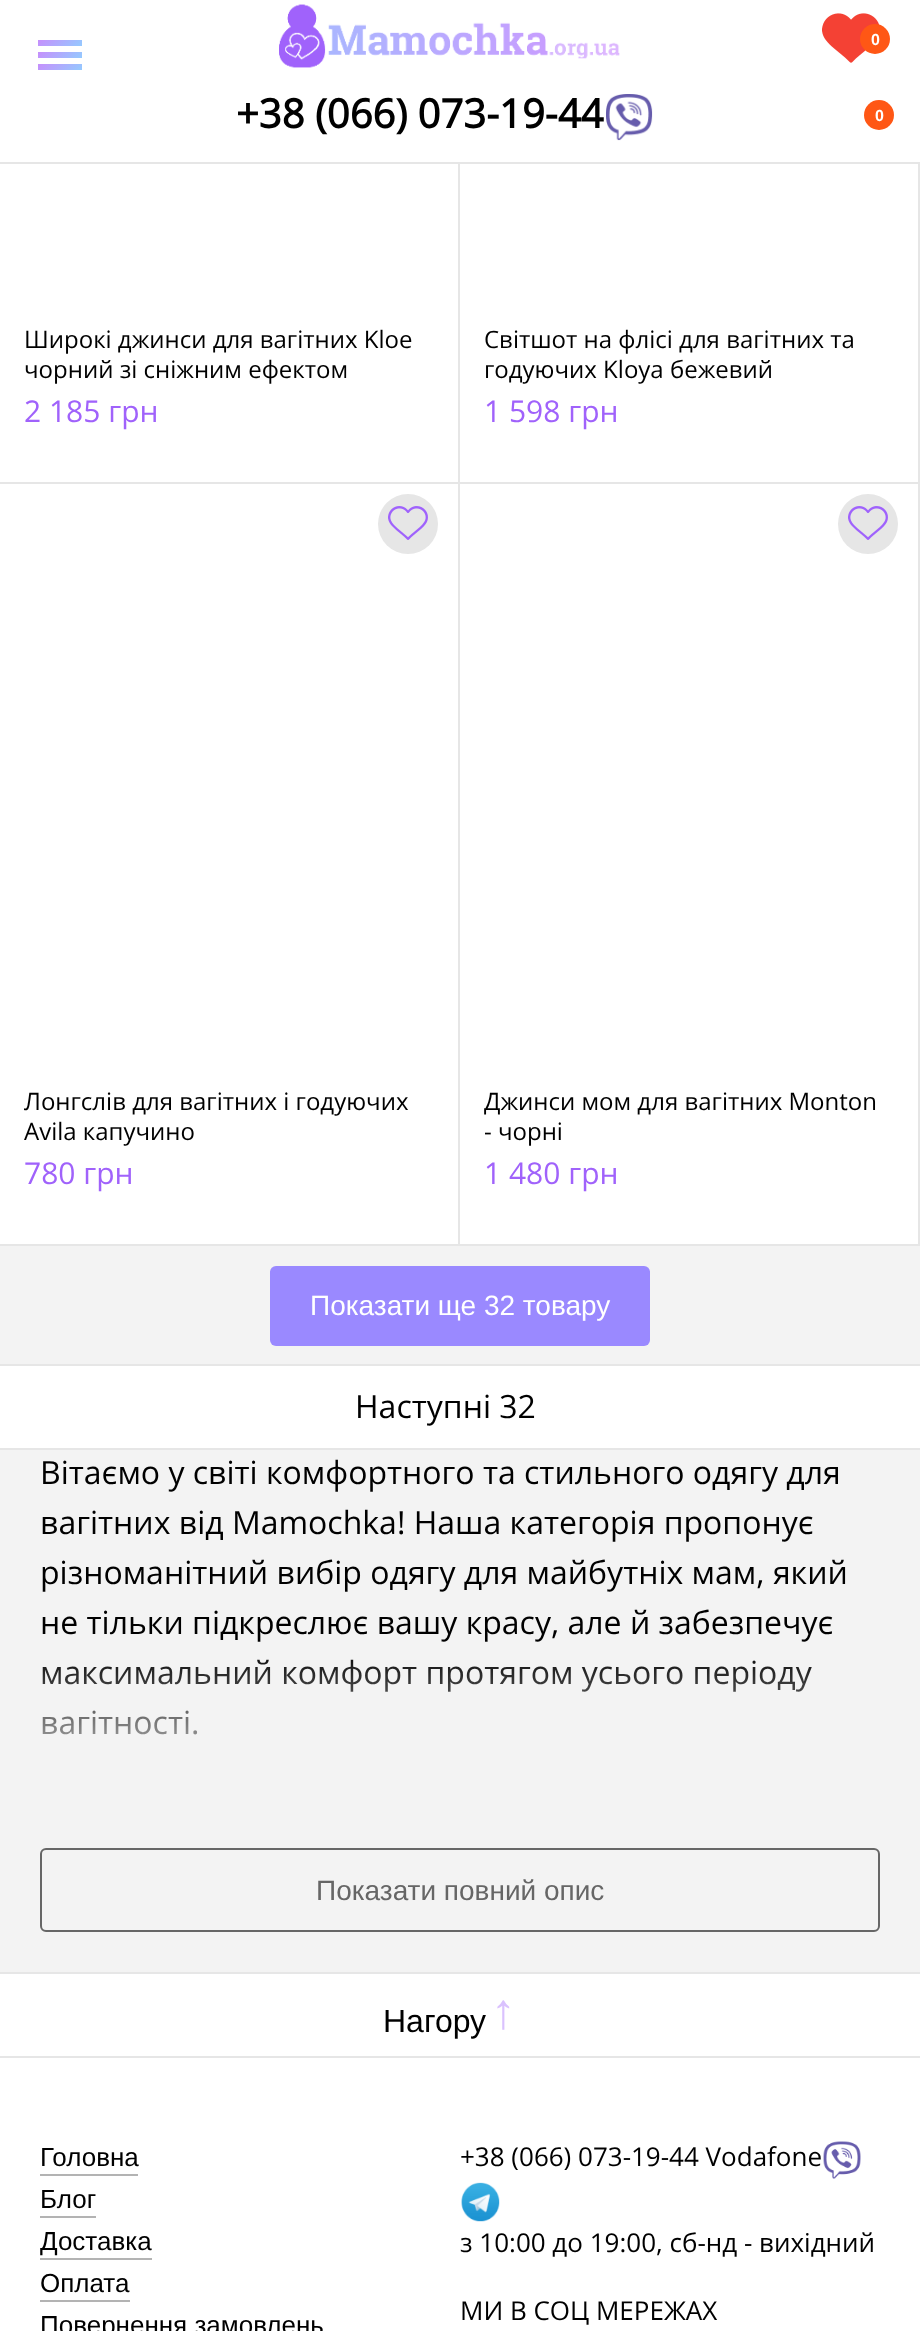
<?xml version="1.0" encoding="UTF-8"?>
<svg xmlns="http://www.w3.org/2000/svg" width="920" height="2331">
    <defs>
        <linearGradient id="g1" gradientUnits="userSpaceOnUse" x1="48" y1="31" x2="73" y2="56"><stop offset="0" stop-color="#C590FC"/><stop offset="1" stop-color="#93CBFF"/></linearGradient>
        <linearGradient id="g2" gradientUnits="userSpaceOnUse" x1="48" y1="43" x2="73" y2="68"><stop offset="0" stop-color="#C590FC"/><stop offset="1" stop-color="#93CBFF"/></linearGradient>
        <linearGradient id="g3" gradientUnits="userSpaceOnUse" x1="48" y1="55" x2="73" y2="80"><stop offset="0" stop-color="#C590FC"/><stop offset="1" stop-color="#93CBFF"/></linearGradient>
        <linearGradient id="g4" gradientUnits="userSpaceOnUse" x1="460" y1="1648" x2="460" y2="1798"><stop offset="0" stop-color="#F3F3F3" stop-opacity="0"/><stop offset="1" stop-color="#F3F3F3"/></linearGradient>
    </defs>
    <rect width="100%" height="100%" fill="#FFFFFF"/>
    <rect x="0" y="162" width="920" height="2" fill="#E6E6E6"/>
    <rect x="38" y="40" width="44" height="6" fill="url(#g1)"/>
    <rect x="38" y="52" width="44" height="6" fill="url(#g2)"/>
    <rect x="38" y="64" width="44" height="6" fill="url(#g3)"/>
    <image x="279" y="4" width="341" height="64" href="img_01.png"/>
    <text x="236" y="128" font-family="Open Sans" font-size="40" font-weight="700" fill="#000000">+38 (066) 073-19-44</text>
    <image x="606" y="94" width="47" height="47" href="img_02.png"/>
    <image x="822" y="13" width="58" height="50" href="img_03.png"/>
    <circle cx="875" cy="39" r="15" fill="#FF5715"/>
    <text x="871" y="45" font-family="Liberation Sans" font-size="16" font-weight="700" fill="#FFFFFF">0</text>
    <circle cx="879" cy="115" r="15" fill="#FF5715"/>
    <text x="875" y="121" font-family="Liberation Sans" font-size="16" font-weight="700" fill="#FFFFFF">0</text>
    <rect x="0" y="1246" width="920" height="726" fill="#F3F3F3"/>
    <rect x="458" y="164" width="2" height="1082" fill="#E6E6E6"/>
    <rect x="0" y="482" width="460" height="2" fill="#E6E6E6"/>
    <text font-family="Open Sans" font-size="24" fill="#000000">
        <tspan x="24" y="348">Широкі джинси для вагітних Kloe</tspan>
        <tspan x="24" y="378">чорний зі сніжним ефектом</tspan>
    </text>
    <text x="24" y="422" font-family="Open Sans" font-size="30" fill="#A062FB">2 185 грн</text>
    <rect x="918" y="164" width="2" height="1082" fill="#E6E6E6"/>
    <rect x="460" y="482" width="460" height="2" fill="#E6E6E6"/>
    <text font-family="Open Sans" font-size="24" fill="#000000">
        <tspan x="484" y="348">Світшот на флісі для вагітних та</tspan>
        <tspan x="484" y="378">годуючих Kloya бежевий</tspan>
    </text>
    <text x="484" y="422" font-family="Open Sans" font-size="30" fill="#A062FB">1 598 грн</text>
    <rect x="0" y="1244" width="920" height="2" fill="#E6E6E6"/>
    <circle cx="408" cy="524" r="30" fill="#E6E6E6"/>
    <image x="388" y="506" width="40" height="34" href="img_04.png"/>
    <text font-family="Open Sans" font-size="24" fill="#000000">
        <tspan x="24" y="1110">Лонгслів для вагітних і годуючих</tspan>
        <tspan x="24" y="1140">Avila капучино</tspan>
    </text>
    <text x="24" y="1184" font-family="Open Sans" font-size="30" fill="#A062FB">780 грн</text>
    <circle cx="868" cy="524" r="30" fill="#E6E6E6"/>
    <image x="848" y="506" width="40" height="34" href="img_04.png"/>
    <text font-family="Open Sans" font-size="24" fill="#000000">
        <tspan x="484" y="1110">Джинси мом для вагітних Monton</tspan>
        <tspan x="484" y="1140">- чорні</tspan>
    </text>
    <text x="484" y="1184" font-family="Open Sans" font-size="30" fill="#A062FB">1 480 грн</text>
    <rect x="270" y="1266" width="380" height="80" rx="6" fill="#9A89FF"/>
    <text x="310" y="1315" font-family="Liberation Sans" font-size="28" fill="#FFFFFF">Показати ще 32 товару</text>
    <rect x="0" y="1366" width="920" height="82" fill="#FFFFFF"/>
    <rect x="0" y="1364" width="920" height="2" fill="#E6E6E6"/>
    <rect x="0" y="1448" width="920" height="2" fill="#E6E6E6"/>
    <text x="355" y="1418" font-family="Open Sans" font-size="32" fill="#000000">Наступні 32</text>
    <text font-family="Open Sans" font-size="32" fill="#000000">
        <tspan x="40" y="1484">Вітаємо у світі комфортного та стильного одягу для</tspan>
        <tspan x="40" y="1534">вагітних від Mamochka! Наша категорія пропонує</tspan>
        <tspan x="40" y="1584">різноманітний вибір одягу для майбутніх мам, який</tspan>
        <tspan x="40" y="1634">не тільки підкреслює вашу красу, але й забезпечує</tspan>
        <tspan x="40" y="1684">максимальний комфорт протягом усього періоду</tspan>
        <tspan x="40" y="1734">вагітності.</tspan>
    </text>
    <rect x="42" y="1659" width="770" height="76" fill="url(#g4)"/>
    <rect x="41" y="1849" width="838" height="82" rx="5" fill="none" stroke="#666666" stroke-width="2"/>
    <text x="316" y="1900" font-family="Liberation Sans" font-size="28" fill="#666666">Показати повний опис</text>
    <rect x="0" y="1972" width="920" height="2" fill="#E6E6E6"/>
    <rect x="0" y="2056" width="920" height="2" fill="#E6E6E6"/>
    <text x="383" y="2032" font-family="Liberation Sans" font-size="32" fill="#000000">Нагору</text>
    <text x="495" y="1990" transform="rotate(90 495 1990)" font-family="Liberation Serif" font-size="50" fill="#DAC2FE">←</text>
    <rect x="40" y="2174" width="98" height="2" fill="#B3B3B3"/>
    <text x="40" y="2166" font-family="Liberation Sans" font-size="26" fill="#000000">Головна</text>
    <rect x="40" y="2216" width="56" height="2" fill="#B3B3B3"/>
    <text x="40" y="2208" font-family="Liberation Sans" font-size="26" fill="#000000">Блог</text>
    <rect x="40" y="2258" width="112" height="2" fill="#B3B3B3"/>
    <text x="40" y="2250" font-family="Liberation Sans" font-size="26" fill="#000000">Доставка</text>
    <rect x="40" y="2300" width="90" height="2" fill="#B3B3B3"/>
    <text font-family="Liberation Sans" font-size="26" fill="#000000">
        <tspan x="40" y="2292">Оплата</tspan>
        <tspan x="40" y="2334">Повернення замовлень</tspan>
    </text>
    <text x="460" y="2166" font-family="Open Sans" font-size="26" fill="#000000">+38 (066) 073-19-44 Vodafone</text>
    <image x="823" y="2141" width="38" height="38" href="img_05.png"/>
    <image x="461" y="2182" width="39" height="40" href="img_06.png"/>
    <text x="460" y="2252" font-family="Open Sans" font-size="26" fill="#000000">з 10:00 до 19:00, сб-нд - вихідний</text>
    <text x="460" y="2320" font-family="Open Sans" font-size="26" fill="#000000">МИ В СОЦ МЕРЕЖАХ</text>
</svg>
